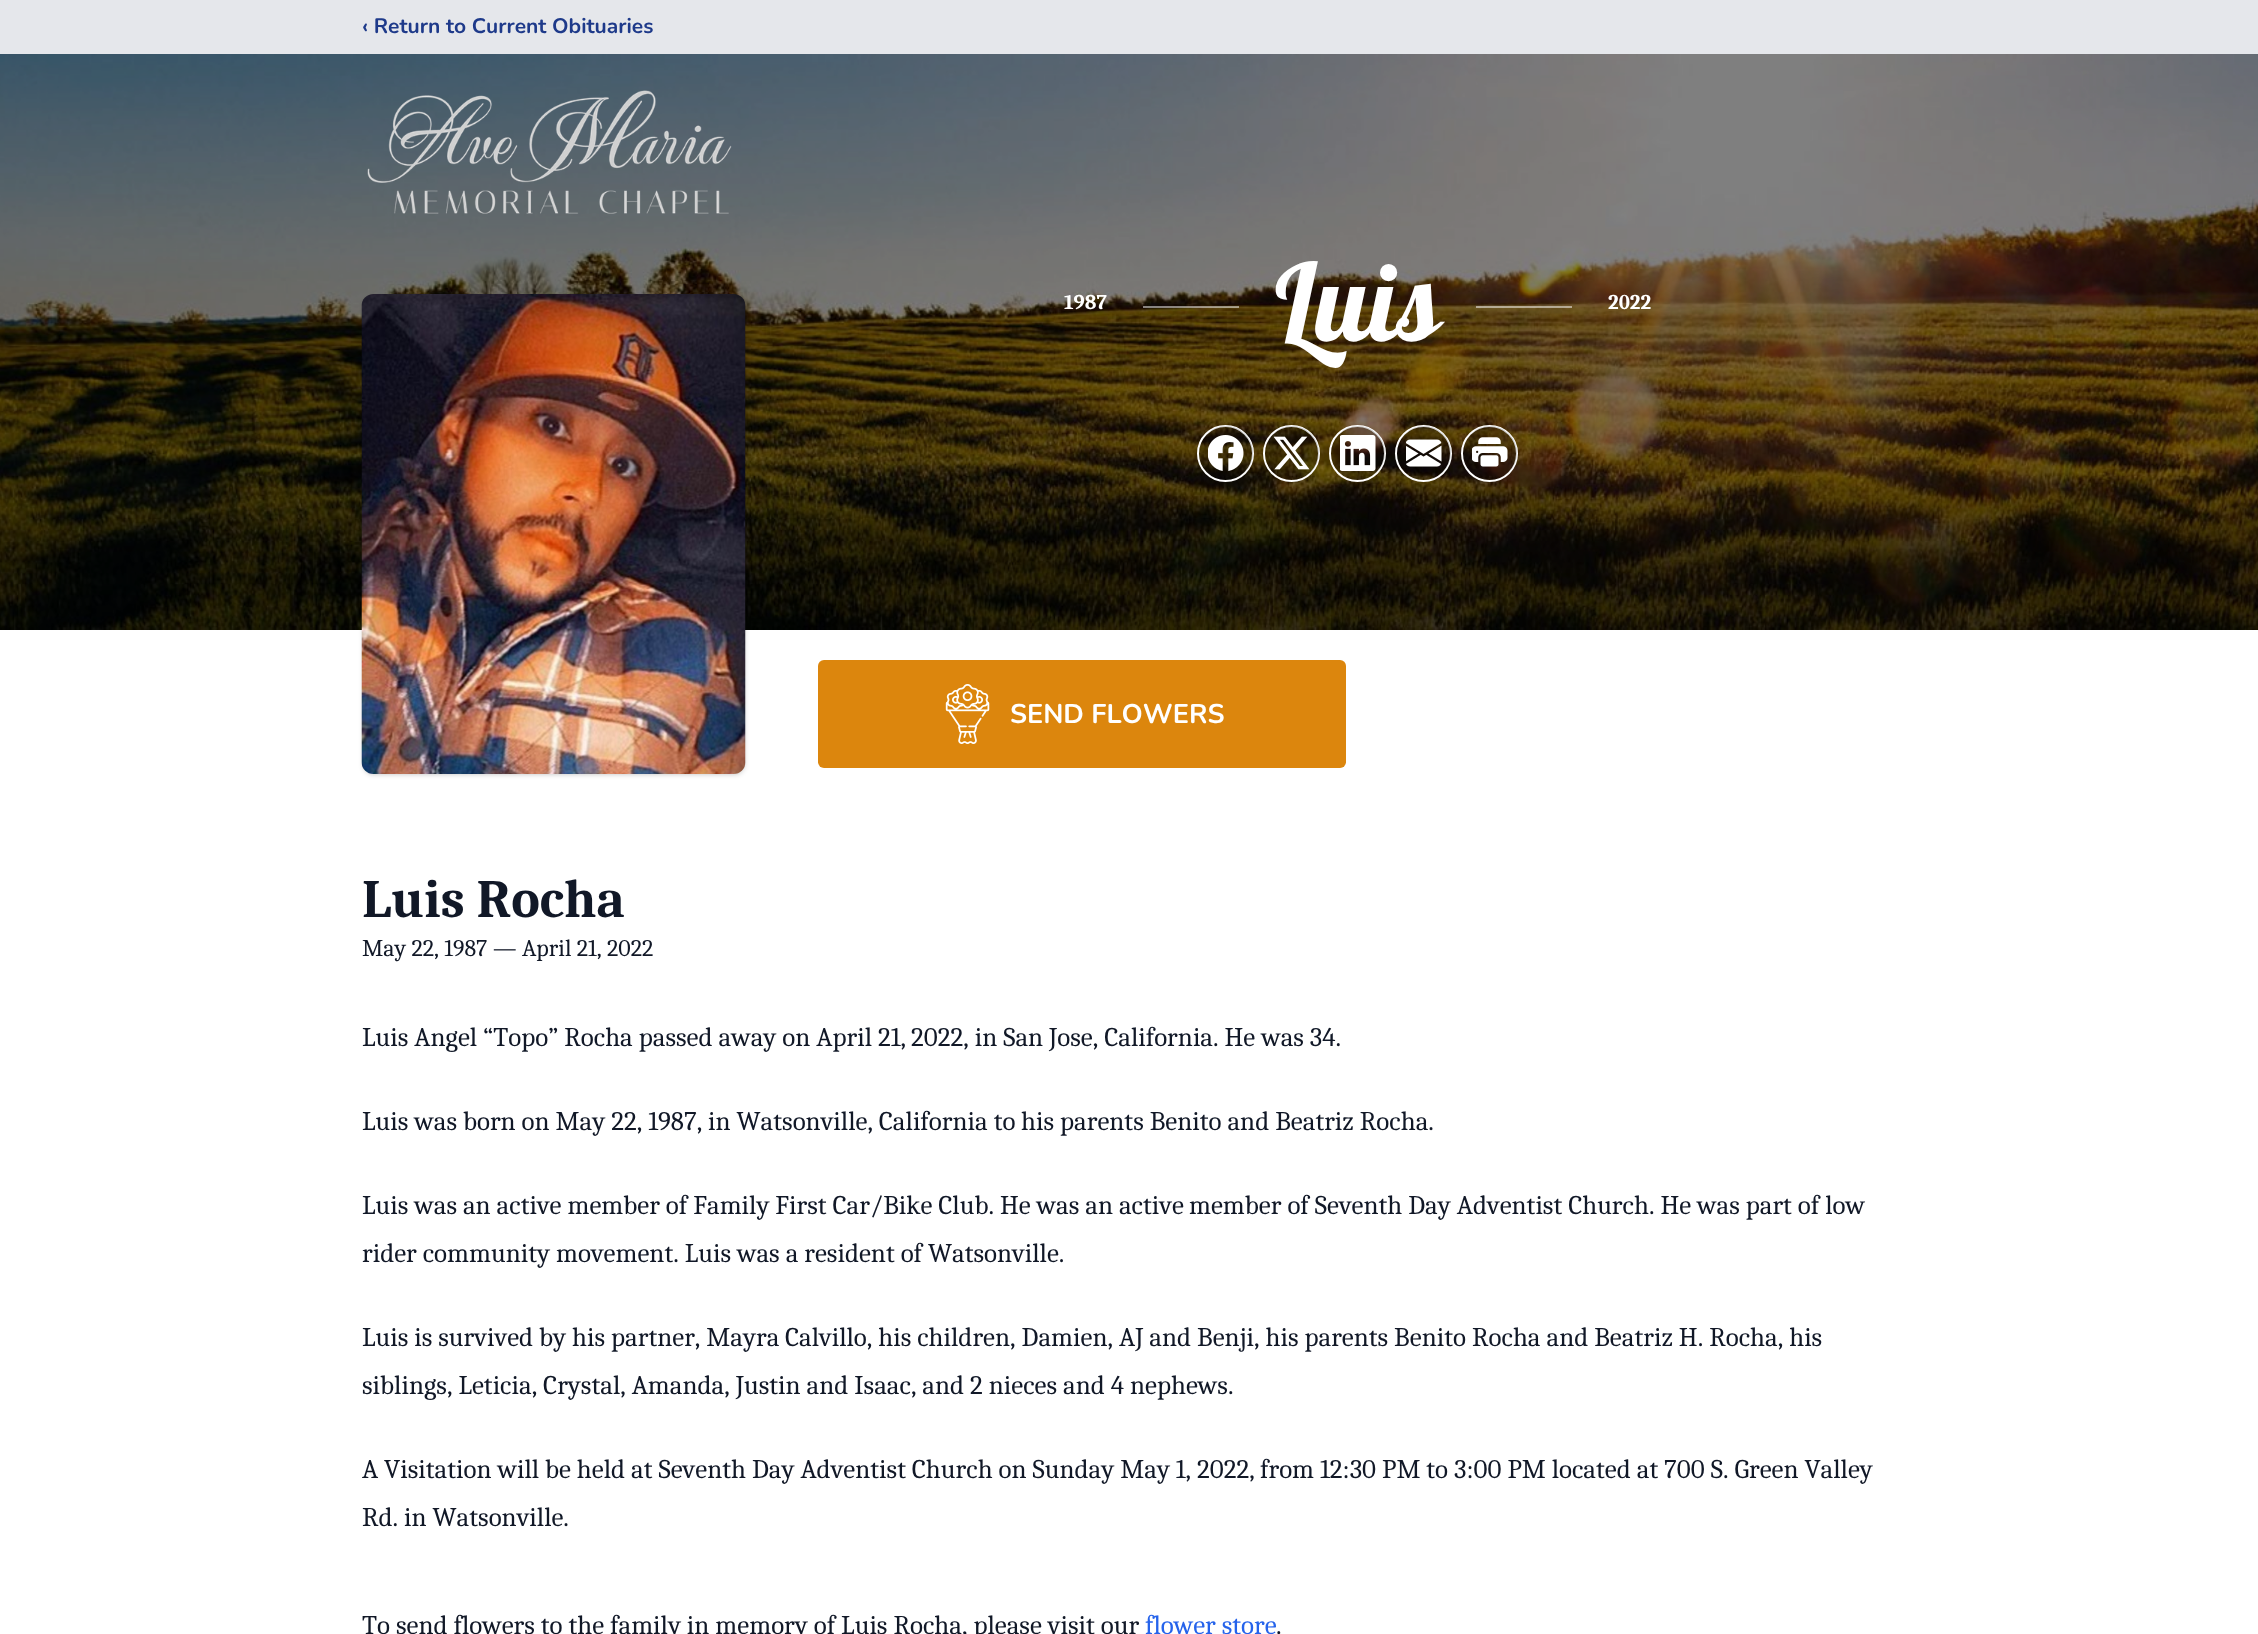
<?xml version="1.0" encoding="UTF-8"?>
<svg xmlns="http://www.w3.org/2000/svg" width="2258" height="1634">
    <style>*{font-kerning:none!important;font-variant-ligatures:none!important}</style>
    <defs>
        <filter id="blur1" x="-50%" y="-200%" width="200%" height="500%"><feGaussianBlur stdDeviation="1.5"/></filter>
        <filter id="blur2" x="-50%" y="-200%" width="200%" height="500%"><feGaussianBlur stdDeviation="2"/></filter>
    </defs>
    <rect width="100%" height="100%" fill="#FFFFFF"/>
    <rect x="0" y="0" width="2258" height="54" fill="#E5E7EB"/>
    <text x="362" y="33" font-family="Nunito" font-size="21" font-weight="700" fill="#1E3A8A">‹ Return to Current Obituaries</text>
    <image x="0" y="54" width="2258" height="576" href="img_01.png"/>
    <image x="367" y="90" width="365" height="124" href="img_02.png"/>
    <rect x="363" y="297" width="381" height="477" rx="11" fill="#000000" fill-opacity="0.1" filter="url(#blur1)"/>
    <rect x="362" y="296" width="384" height="480" rx="12" fill="#000000" fill-opacity="0.1" filter="url(#blur2)"/>
    <image x="361" y="294" width="385" height="480" href="img_03.png"/>
    <text x="1064" y="309" font-family="Caladea" font-size="21" font-weight="700" fill="#FFFFFF">1987</text>
    <rect x="1143" y="306" width="96" height="2" fill="#FFFFFF" fill-opacity="0.5"/>
    <text x="1275" y="341" font-family="Lobster" font-size="108" fill="#FFFFFF">Luis</text>
    <rect x="1476" y="306" width="96" height="2" fill="#FFFFFF" fill-opacity="0.5"/>
    <text x="1608" y="309" font-family="Caladea" font-size="21" font-weight="700" fill="#FFFFFF">2022</text>
    <circle cx="1225.5" cy="453.5" r="27.5" fill="none" stroke="#FFFFFF" stroke-width="2"/>
    <circle cx="1226" cy="453" r="27" fill="#000000" fill-opacity="0.2"/>
    <image x="1208" y="435" width="36" height="36" href="img_04.png"/>
    <circle cx="1291.5" cy="453.5" r="27.5" fill="none" stroke="#FFFFFF" stroke-width="2"/>
    <circle cx="1292" cy="453" r="27" fill="#000000" fill-opacity="0.2"/>
    <image x="1274" y="436" width="36" height="34" href="img_05.png"/>
    <circle cx="1357.5" cy="453.5" r="27.5" fill="none" stroke="#FFFFFF" stroke-width="2"/>
    <circle cx="1358" cy="453" r="27" fill="#000000" fill-opacity="0.2"/>
    <image x="1340" y="435" width="36" height="36" href="img_06.png"/>
    <circle cx="1423.5" cy="453.5" r="27.5" fill="none" stroke="#FFFFFF" stroke-width="2"/>
    <circle cx="1424" cy="453" r="27" fill="#000000" fill-opacity="0.2"/>
    <image x="1406" y="439" width="36" height="28" href="img_07.png"/>
    <circle cx="1489.5" cy="453.5" r="27.5" fill="none" stroke="#FFFFFF" stroke-width="2"/>
    <circle cx="1490" cy="453" r="27" fill="#000000" fill-opacity="0.2"/>
    <image x="1472" y="437" width="36" height="30" href="img_08.png"/>
    <rect x="818" y="660" width="528" height="108" rx="6" fill="#DC860D"/>
    <image x="945" y="684" width="45" height="60" href="img_09.png"/>
    <text x="1010" y="723" font-family="Nunito" font-size="27" font-weight="700" fill="#FFFFFF">SEND FLOWERS</text>
    <text x="362" y="917" font-family="Caladea" font-size="54" font-weight="700" fill="#111827">Luis Rocha</text>
    <text x="362" y="956" font-family="Caladea" font-size="24" fill="#111827">May 22, 1987 — April 21, 2022</text>
    <text x="362" y="1046" font-family="Caladea" font-size="27" fill="#111827">Luis Angel “Topo” Rocha passed away on April 21,</text>
    <text x="911" y="1046" font-family="Caladea" font-size="27" fill="#111827">2022, in San Jose, California. He was 34.</text>
    <text x="362" y="1130" font-family="Caladea" font-size="27" fill="#111827">Luis was born on May 22, 1987, in Watsonville, California to</text>
    <text x="1021" y="1130" font-family="Caladea" font-size="27" fill="#111827">his parents Benito and Beatriz Rocha.</text>
    <text x="362" y="1214" font-family="Caladea" font-size="27" fill="#111827">Luis was an active member of Family First Car/Bike Club. He was an active</text>
    <text x="1189" y="1214" font-family="Caladea" font-size="27" fill="#111827">member of Seventh Day Adventist Church. He was part of low</text>
    <text x="362" y="1262" font-family="Caladea" font-size="27" fill="#111827">rider community movement. Luis was a resident of Watsonville.</text>
    <text x="362" y="1346" font-family="Caladea" font-size="27" fill="#111827">Luis is survived by his partner, Mayra</text>
    <text x="785" y="1346" font-family="Caladea" font-size="27" fill="#111827">Calvillo, his children, Damien, AJ and Benji, his parents Benito</text>
    <text x="1472" y="1346" font-family="Caladea" font-size="27" fill="#111827">Rocha and Beatriz H. Rocha, his</text>
    <text x="362" y="1394" font-family="Caladea" font-size="27" fill="#111827">siblings, Leticia, Crystal, Amanda, Justin and Isaac, and 2 nieces and 4 nephews.</text>
    <text x="362" y="1478" font-family="Caladea" font-size="27" fill="#111827">A Visitation will be held at Seventh Day Adventist Church on Sunday May 1, 2022,</text>
    <text x="1260" y="1478" font-family="Caladea" font-size="27" fill="#111827">from 12:30 PM to 3:00 PM located at 700 S. Green Valley</text>
    <text x="362" y="1526" font-family="Caladea" font-size="27" fill="#111827">Rd. in Watsonville.</text>
    <text x="362" y="1634" font-family="Caladea" font-size="27" fill="#111827">To send flowers to the family in memory of Luis Rocha, please visit our</text>
    <text x="1145" y="1634" font-family="Caladea" font-size="27" fill="#2563EB">flower store</text>
    <text x="1276" y="1634" font-family="Caladea" font-size="27" fill="#111827">.</text>
</svg>
